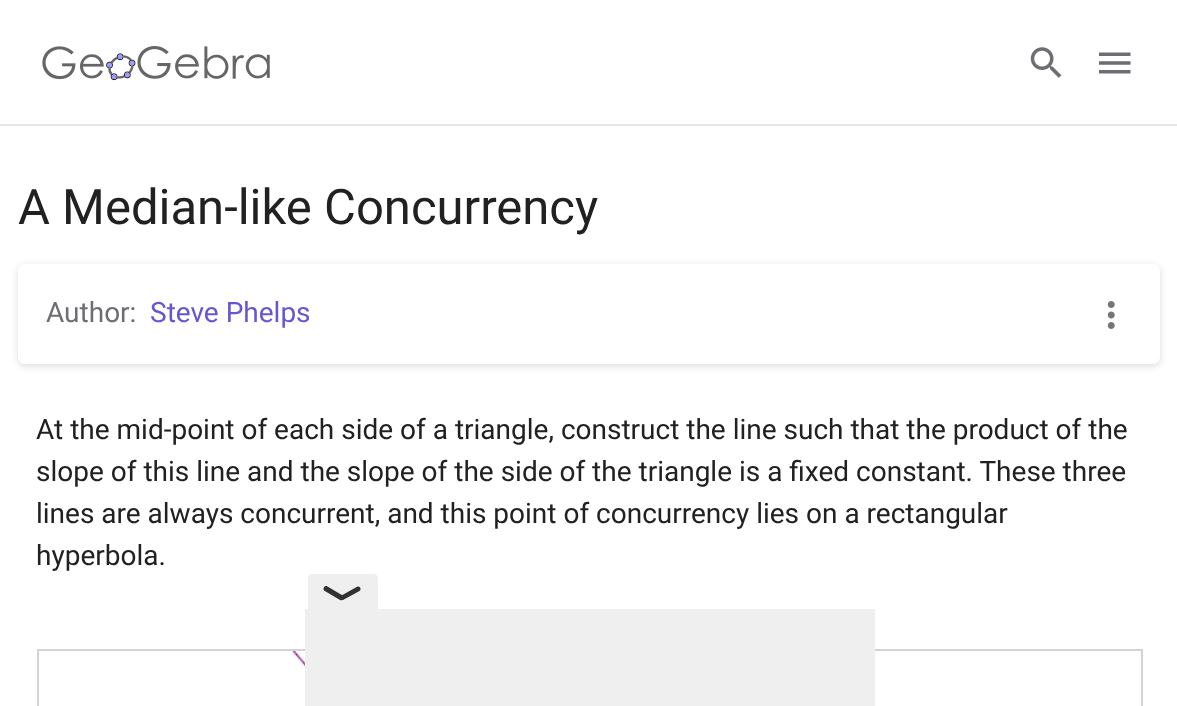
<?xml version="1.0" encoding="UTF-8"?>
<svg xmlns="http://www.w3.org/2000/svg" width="1177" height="706">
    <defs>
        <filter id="blur1" x="-50%" y="-200%" width="200%" height="500%"><feGaussianBlur stdDeviation="3.5"/></filter>
    </defs>
    <rect width="100%" height="100%" fill="#FFFFFF"/>
    <rect x="0" y="124" width="1177" height="2" fill="#E6E6EB"/>
    <image x="42" y="46" width="228" height="35" href="img_01.png"/>
    <image x="1030" y="47" width="32" height="31" href="img_02.png"/>
    <image x="1099" y="52" width="32" height="22" href="img_03.png"/>
    <text x="18" y="224" font-family="Roboto" font-size="49" fill="#212121">A Median-like Concurrency</text>
    <rect x="18" y="266" width="1142" height="100" rx="7" fill="#1C1C1F" fill-opacity="0.14" filter="url(#blur1)"/>
    <rect x="18" y="264" width="1142" height="100" rx="7" fill="#FFFFFF"/>
    <text x="46" y="322" font-family="Roboto" font-size="28" fill="#6E6D73">Author:</text>
    <text x="150" y="322" font-family="Roboto" font-size="28" fill="#6557D2">Steve Phelps</text>
    <image x="1107" y="301" width="8" height="28" href="img_04.png"/>
    <text font-family="Roboto" font-size="28" fill="#212121">
        <tspan x="36" y="439">At the mid-point of each side of a triangle, construct the line such that the product of the</tspan>
        <tspan x="36" y="481">slope of this line and the slope of the side of the triangle is a fixed constant. These three</tspan>
        <tspan x="36" y="523">lines are always concurrent, and this point of concurrency lies on a rectangular</tspan>
        <tspan x="36" y="565">hyperbola.</tspan>
    </text>
    <image x="292" y="651" width="13" height="55" href="img_05.png"/>
    <rect x="38" y="650" width="1104" height="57" fill="none" stroke="#D3D3D3" stroke-width="2"/>
    <path d="M 312 574 H 374 C 376 574 378 576 378 578 V 609 H 308 V 578 C 308 576 310 574 312 574 Z" fill="#EFEFEF"/>
    <path d="M 327.5 586.5 L 343.5 596 C 345 598.5 342.5 601 340 600 L 324 590.5 C 322.5 588 325 585 327.5 586.5 Z" fill="#313131"/>
    <path d="M 341.5 595.5 L 357.5 586.5 C 360.5 586 361.5 589.5 359.5 591 L 343 600 C 340.5 600.5 339 596.5 341.5 595.5 Z" fill="#313131"/>
    <rect x="305" y="609" width="570" height="97" fill="#EFEFEF"/>
</svg>
